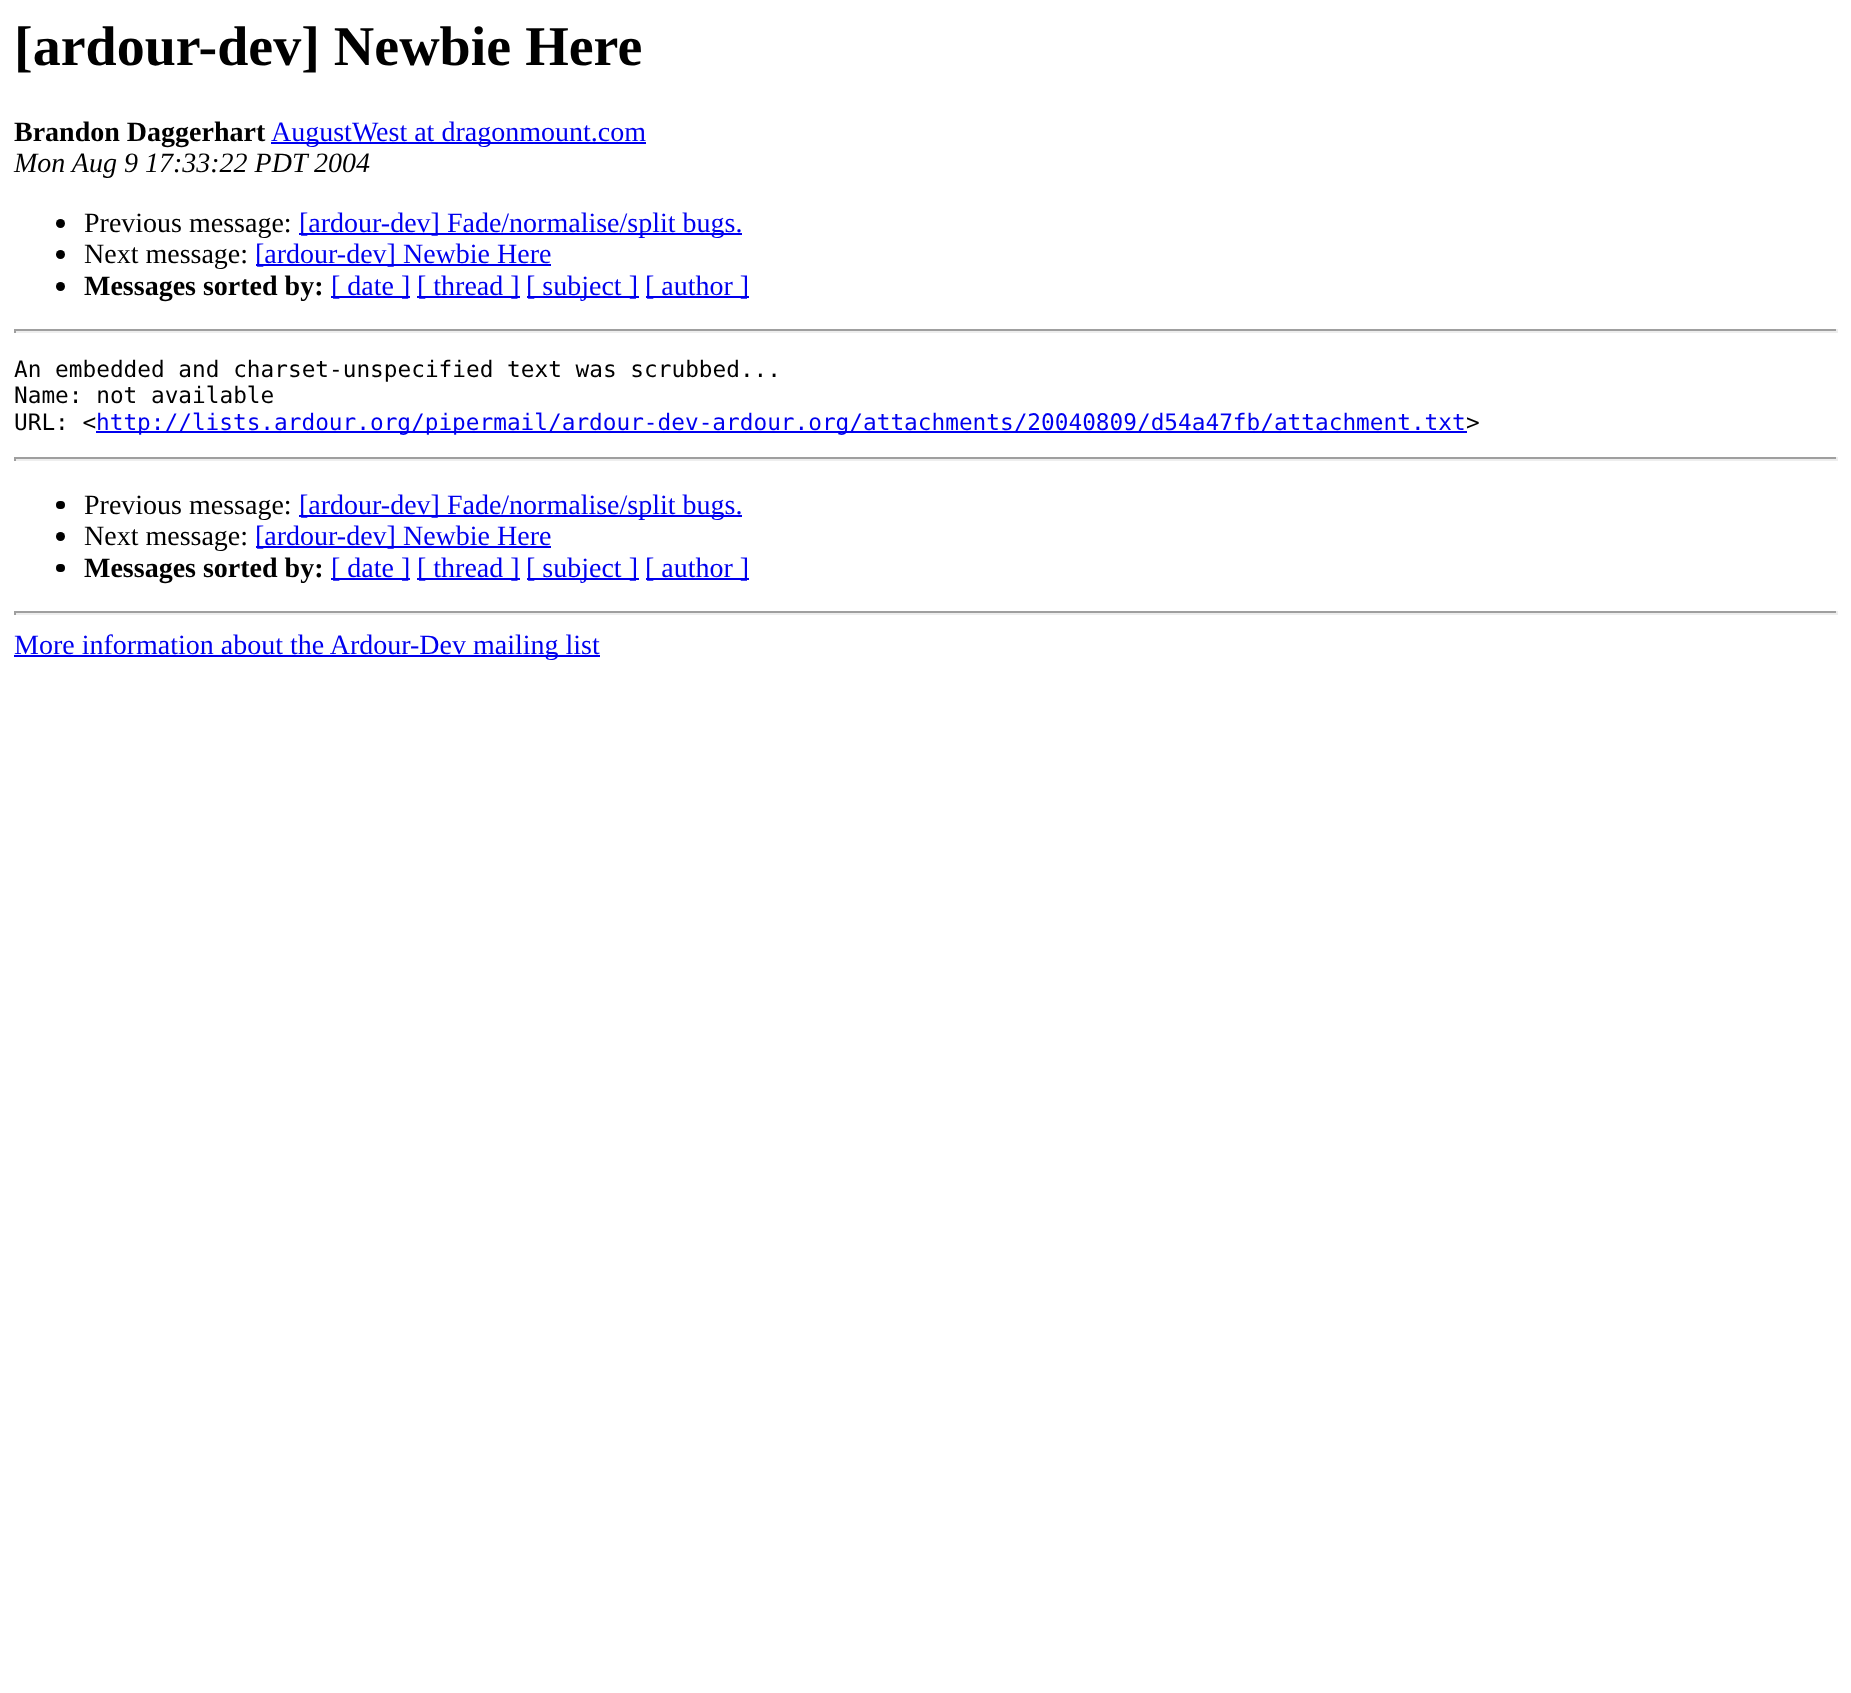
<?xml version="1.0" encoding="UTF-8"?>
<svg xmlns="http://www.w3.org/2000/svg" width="1851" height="1693">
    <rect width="100%" height="100%" fill="#FFFFFF"/>
    <text x="14" y="65" font-family="Liberation Serif" font-size="56" font-weight="700" fill="#000000">[ardour-dev] Newbie Here</text>
    <text x="14" y="141" font-family="Liberation Serif" font-size="28" font-weight="700" fill="#000000">Brandon Daggerhart</text>
    <rect x="271" y="142" width="375" height="2" fill="#0000EE"/>
    <text x="271" y="141" font-family="Liberation Serif" font-size="28" fill="#0000EE">AugustWest at dragonmount.com</text>
    <text x="14" y="172" font-family="Liberation Serif" font-size="28" font-style="italic" fill="#000000">Mon Aug 9 17:33:22 PDT 2004</text>
    <circle cx="60.5" cy="223.5" r="4.5" fill="#000000"/>
    <text x="84" y="232" font-family="Liberation Serif" font-size="28" fill="#000000">Previous message:</text>
    <rect x="299" y="233" width="443" height="2" fill="#0000EE"/>
    <text x="299" y="232" font-family="Liberation Serif" font-size="28" fill="#0000EE">[ardour-dev] Fade/normalise/split bugs.</text>
    <circle cx="60.5" cy="254.5" r="4.5" fill="#000000"/>
    <text x="84" y="263" font-family="Liberation Serif" font-size="28" fill="#000000">Next message:</text>
    <rect x="256" y="264" width="295" height="2" fill="#0000EE"/>
    <text x="255" y="263" font-family="Liberation Serif" font-size="28" fill="#0000EE">[ardour-dev] Newbie Here</text>
    <circle cx="60.5" cy="286.5" r="4.5" fill="#000000"/>
    <text x="84" y="295" font-family="Liberation Serif" font-size="28" font-weight="700" fill="#000000">Messages sorted by:</text>
    <rect x="331" y="296" width="79" height="2" fill="#0000EE"/>
    <text x="331" y="295" font-family="Liberation Serif" font-size="28" fill="#0000EE">[ date ]</text>
    <rect x="417" y="296" width="103" height="2" fill="#0000EE"/>
    <text x="417" y="295" font-family="Liberation Serif" font-size="28" fill="#0000EE">[ thread ]</text>
    <rect x="527" y="296" width="112" height="2" fill="#0000EE"/>
    <text x="526" y="295" font-family="Liberation Serif" font-size="28" fill="#0000EE">[ subject ]</text>
    <rect x="646" y="296" width="103" height="2" fill="#0000EE"/>
    <text x="645" y="295" font-family="Liberation Serif" font-size="28" fill="#0000EE">[ author ]</text>
    <rect x="14" y="329" width="1824" height="2" fill="#9F9F9F"/>
    <rect x="1836" y="329" width="2" height="4" fill="#EEEEEE"/>
    <rect x="14" y="331" width="1824" height="2" fill="#EEEEEE"/>
    <rect x="14" y="329" width="2" height="4" fill="#9F9F9F"/>
    <text font-family="DejaVu Sans Mono" font-size="22.75" fill="#000000">
        <tspan x="14" y="377">An embedded and charset-unspecified text was scrubbed...</tspan>
        <tspan x="14" y="403">Name: not available</tspan>
        <tspan x="14" y="430">URL: &lt;</tspan>
    </text>
    <rect x="96" y="431" width="1371" height="2" fill="#0000EE"/>
    <text x="96" y="430" font-family="DejaVu Sans Mono" font-size="22.75" fill="#0000EE">http://lists.ardour.org/pipermail/ardour-dev-ardour.org/attachments/20040809/d54a47fb/attachment.txt</text>
    <text x="1466" y="430" font-family="DejaVu Sans Mono" font-size="22.75" fill="#000000">&gt;</text>
    <rect x="14" y="457" width="1824" height="2" fill="#9F9F9F"/>
    <rect x="1836" y="457" width="2" height="4" fill="#EEEEEE"/>
    <rect x="14" y="459" width="1824" height="2" fill="#EEEEEE"/>
    <rect x="14" y="457" width="2" height="4" fill="#9F9F9F"/>
    <rect x="56" y="501" width="9" height="8" rx="4" fill="#000000"/>
    <text x="84" y="514" font-family="Liberation Serif" font-size="28" fill="#000000">Previous message:</text>
    <rect x="299" y="515" width="443" height="2" fill="#0000EE"/>
    <text x="299" y="514" font-family="Liberation Serif" font-size="28" fill="#0000EE">[ardour-dev] Fade/normalise/split bugs.</text>
    <circle cx="60.5" cy="536.5" r="4.5" fill="#000000"/>
    <text x="84" y="545" font-family="Liberation Serif" font-size="28" fill="#000000">Next message:</text>
    <rect x="256" y="546" width="295" height="2" fill="#0000EE"/>
    <text x="255" y="545" font-family="Liberation Serif" font-size="28" fill="#0000EE">[ardour-dev] Newbie Here</text>
    <rect x="56" y="564" width="9" height="8" rx="4" fill="#000000"/>
    <text x="84" y="577" font-family="Liberation Serif" font-size="28" font-weight="700" fill="#000000">Messages sorted by:</text>
    <rect x="331" y="578" width="79" height="2" fill="#0000EE"/>
    <text x="331" y="577" font-family="Liberation Serif" font-size="28" fill="#0000EE">[ date ]</text>
    <rect x="417" y="578" width="103" height="2" fill="#0000EE"/>
    <text x="417" y="577" font-family="Liberation Serif" font-size="28" fill="#0000EE">[ thread ]</text>
    <rect x="527" y="578" width="112" height="2" fill="#0000EE"/>
    <text x="526" y="577" font-family="Liberation Serif" font-size="28" fill="#0000EE">[ subject ]</text>
    <rect x="646" y="578" width="103" height="2" fill="#0000EE"/>
    <text x="645" y="577" font-family="Liberation Serif" font-size="28" fill="#0000EE">[ author ]</text>
    <rect x="14" y="611" width="1824" height="2" fill="#9F9F9F"/>
    <rect x="1836" y="611" width="2" height="4" fill="#EEEEEE"/>
    <rect x="14" y="613" width="1824" height="2" fill="#EEEEEE"/>
    <rect x="14" y="611" width="2" height="4" fill="#9F9F9F"/>
    <rect x="14" y="655" width="586" height="2" fill="#0000EE"/>
    <text x="14" y="654" font-family="Liberation Serif" font-size="28" fill="#0000EE">More information about the Ardour-Dev mailing list</text>
</svg>
